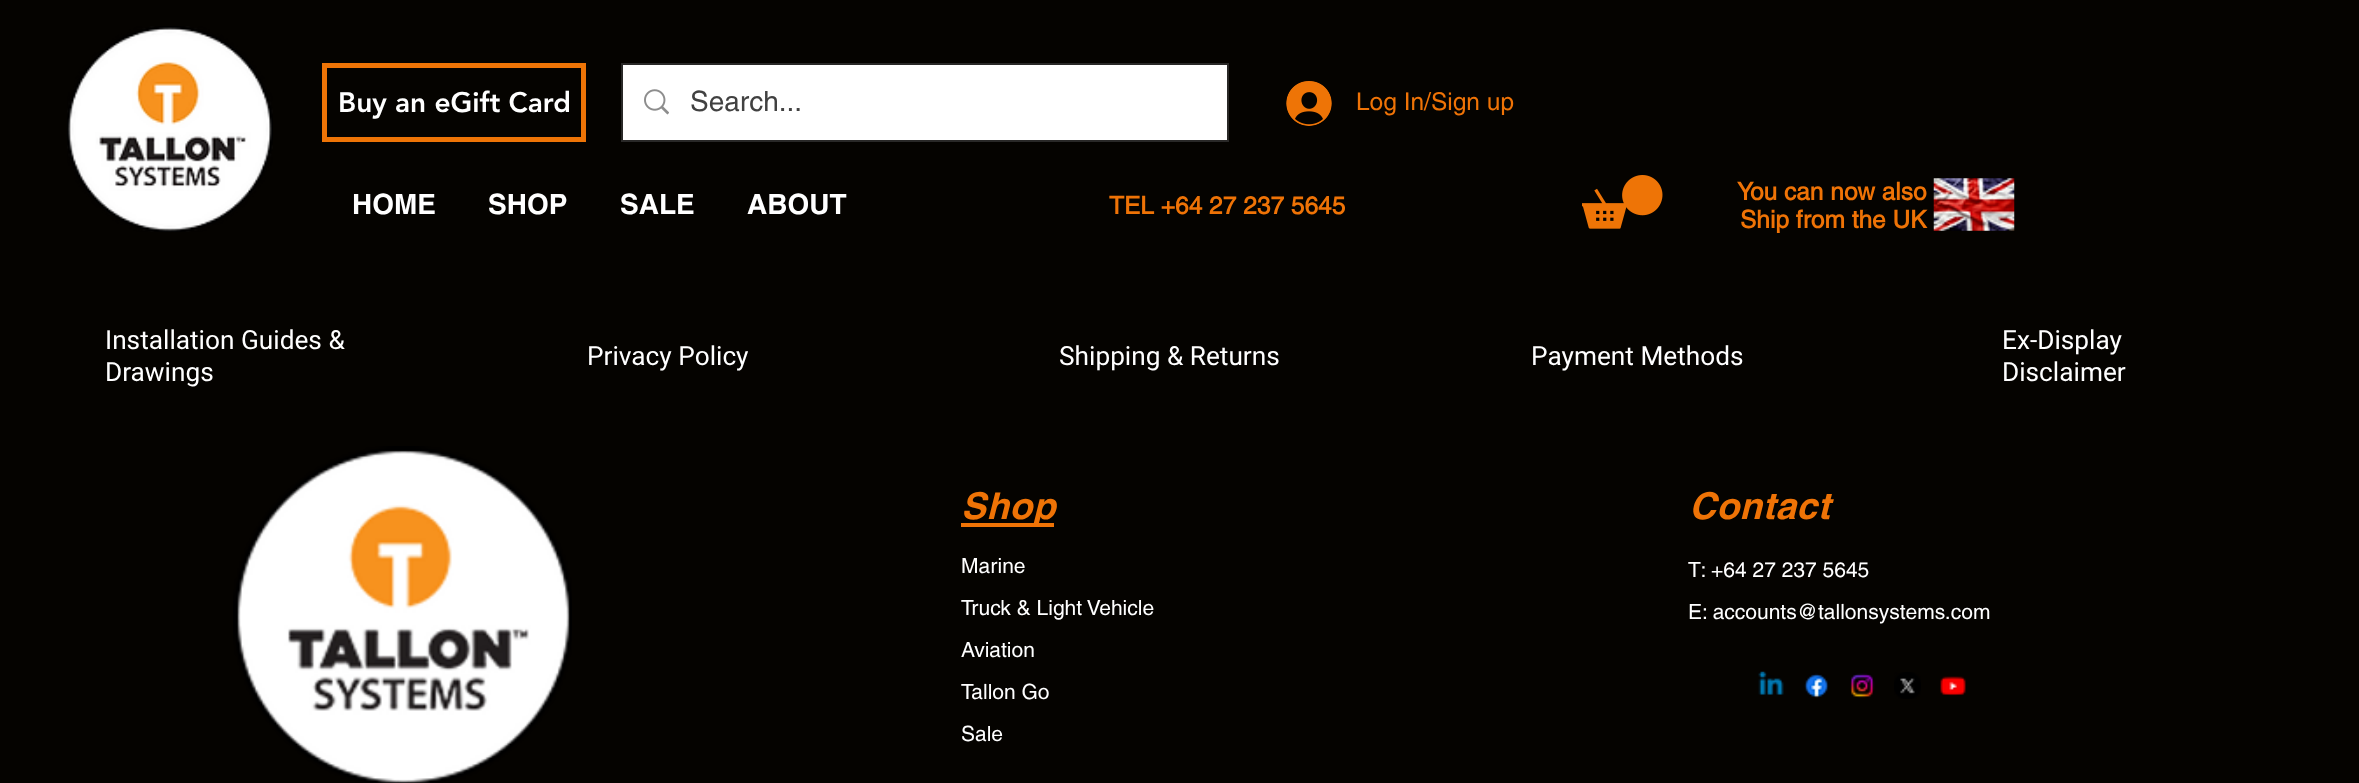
<?xml version="1.0" encoding="UTF-8"?>
<svg xmlns="http://www.w3.org/2000/svg" width="2359" height="783">
    <rect width="100%" height="100%" fill="#050300"/>
    <image x="67" y="26" width="206" height="206" href="img_01.png"/>
    <rect x="324.5" y="65.5" width="259" height="74" fill="none" stroke="#EE7406" stroke-width="5"/>
    <text x="338" y="112" font-family="'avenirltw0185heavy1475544'" font-size="28" font-weight="900" fill="#FFFFFF">Buy an eGift Card</text>
    <rect x="622" y="64" width="606" height="77" fill="none" stroke="#292827" stroke-width="2"/>
    <rect x="623" y="65" width="604" height="75" fill="#FFFFFF"/>
    <image x="644" y="89" width="25" height="26" href="img_02.png"/>
    <text x="690" y="111" font-family="helvetica" font-size="28" fill="#414141">Search...</text>
    <image x="1286" y="81" width="46" height="45" href="img_03.png"/>
    <text x="1356" y="110" font-family="helvetica" font-size="24.5" fill="#EF7306">Log In/Sign up</text>
    <text x="352" y="214" font-family="helvetica" font-size="28" font-weight="700" fill="#FFFFFF">HOME</text>
    <text x="488" y="214" font-family="helvetica" font-size="28" font-weight="700" fill="#FFFFFF">SHOP</text>
    <text x="620" y="214" font-family="helvetica" font-size="28" font-weight="700" fill="#FFFFFF">SALE</text>
    <text x="747" y="214" font-family="helvetica" font-size="28" font-weight="700" fill="#FFFFFF">ABOUT</text>
    <text x="1109" y="214" font-family="'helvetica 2'" font-size="24.5" font-weight="700" fill="#EF7306">TEL +64 27 237 5645</text>
    <image x="1582" y="175" width="81" height="54" href="img_04.png"/>
    <text x="1737" y="200" font-family="'helvetica 2'" font-size="24.5" font-weight="700" fill="#EF7306">You can now also</text>
    <text x="1740" y="228" font-family="'helvetica 2'" font-size="24.5" font-weight="700" fill="#EF7306">Ship from the UK</text>
    <image x="1933" y="178" width="82" height="53" href="img_05.png"/>
    <text font-family="Roboto" font-size="26.25" fill="#FFFFFF">
        <tspan x="105" y="349">Installation Guides &amp;</tspan>
        <tspan x="105" y="381">Drawings</tspan>
    </text>
    <text x="587" y="365" font-family="Roboto" font-size="26.25" fill="#FFFFFF">Privacy Policy</text>
    <text x="1059" y="365" font-family="Roboto" font-size="26.25" fill="#FFFFFF">Shipping &amp; Returns</text>
    <text x="1531" y="365" font-family="Roboto" font-size="26.25" fill="#FFFFFF">Payment Methods</text>
    <text font-family="Roboto" font-size="26.25" fill="#FFFFFF">
        <tspan x="2002" y="349">Ex-Display</tspan>
        <tspan x="2002" y="381">Disclaimer</tspan>
    </text>
    <image x="233" y="446" width="339" height="337" href="img_06.png"/>
    <rect x="961" y="523" width="93" height="4" fill="#EF7306"/>
    <text x="961" y="519" font-family="helvetica" font-size="37" font-weight="700" font-style="italic" letter-spacing="0.5" fill="#EF7306">Shop</text>
    <text x="961" y="573" font-family="helvetica" font-size="21" fill="#FFFFFF">Marine</text>
    <text x="961" y="615" font-family="helvetica" font-size="21" fill="#FFFFFF">Truck &amp; Light Vehicle</text>
    <text x="961" y="657" font-family="helvetica" font-size="21" fill="#FFFFFF">Aviation</text>
    <text x="961" y="699" font-family="helvetica" font-size="21" fill="#FFFFFF">Tallon Go</text>
    <text x="961" y="741" font-family="helvetica" font-size="21" fill="#FFFFFF">Sale</text>
    <text x="1689" y="519" font-family="helvetica" font-size="37" font-weight="700" font-style="italic" letter-spacing="0.5" fill="#EF7306">Contact</text>
    <text x="1688" y="577" font-family="helvetica" font-size="21" fill="#FFFFFF">T: +64 27 237 5645</text>
    <text x="1688" y="619" font-family="helvetica" font-size="21" fill="#FFFFFF">E: accounts@tallonsystems.com</text>
    <image x="1758" y="671" width="26" height="24" href="img_07.png"/>
    <image x="1804" y="673" width="25" height="25" href="img_08.png"/>
    <image x="1850" y="673" width="25" height="25" href="img_09.png"/>
    <image x="1894" y="672" width="27" height="27" href="img_10.png"/>
    <image x="1940" y="676" width="26" height="20" href="img_11.png"/>
</svg>
